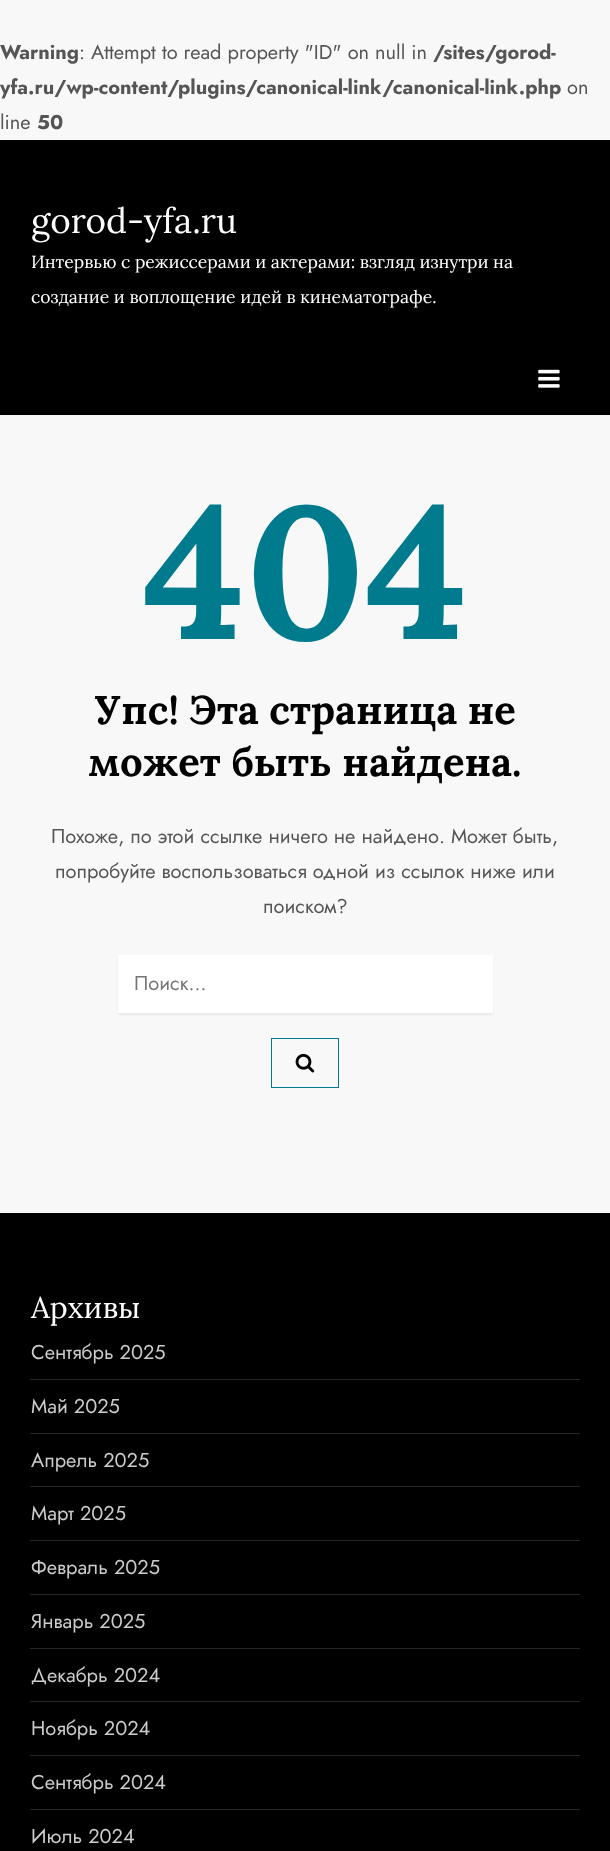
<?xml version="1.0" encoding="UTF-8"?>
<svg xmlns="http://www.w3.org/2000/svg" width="610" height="1851">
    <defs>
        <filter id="blur1" x="-50%" y="-200%" width="200%" height="500%"><feGaussianBlur stdDeviation="1"/></filter>
    </defs>
    <rect width="100%" height="100%" fill="#F8F8F8"/>
    <text x="0" y="59" font-family="Jost" font-size="20" font-weight="700" fill="#555555">Warning</text>
    <text x="79" y="59" font-family="Jost" font-size="20" fill="#555555">: Attempt to read property "ID" on null in</text>
    <text x="433" y="59" font-family="Jost" font-size="20" font-weight="700" fill="#555555">/sites/gorod-</text>
    <text x="0" y="94" font-family="Jost" font-size="20" font-weight="700" fill="#555555">yfa.ru/wp-content/plugins/canonical-link/canonical-link.php</text>
    <text x="567" y="94" font-family="Jost" font-size="20" fill="#555555">on</text>
    <text x="0" y="129" font-family="Jost" font-size="20" fill="#555555">line</text>
    <text x="37" y="129" font-family="Jost" font-size="20" font-weight="700" fill="#555555">50</text>
    <rect x="0" y="140" width="610" height="275" fill="#000000"/>
    <text x="31" y="233" font-family="Lora" font-size="35" fill="#FFFFFF">gorod-yfa.ru</text>
    <text x="31" y="268" font-family="Lora" font-size="17.5" fill="#FFFFFF">Интервью с режиссерами и актерами: взгляд изнутри на</text>
    <text x="31" y="303" font-family="Lora" font-size="17.5" fill="#FFFFFF">создание и воплощение идей в кинематографе.</text>
    <image x="538" y="369" width="22" height="19" href="img_01.png"/>
    <text x="143" y="639" font-family="Lora" font-size="188" font-weight="700" fill="#007B8E">404</text>
    <text x="95" y="724" font-family="Lora" font-size="40" font-weight="700" fill="#000000">Упс! Эта страница не</text>
    <text x="88" y="776" font-family="Lora" font-size="40" font-weight="700" fill="#000000">может быть найдена.</text>
    <text x="51" y="843" font-family="Jost" font-size="20" fill="#555555">Похоже, по этой ссылке ничего не найдено. Может быть,</text>
    <text x="55" y="878" font-family="Jost" font-size="20" fill="#555555">попробуйте воспользоваться одной из ссылок ниже или</text>
    <text x="263" y="913" font-family="Jost" font-size="20" fill="#555555">поиском?</text>
    <rect x="118" y="958" width="375" height="57" fill="#000000" fill-opacity="0.06" filter="url(#blur1)"/>
    <rect x="118" y="955" width="375" height="58" fill="#FFFFFF"/>
    <text x="134" y="990" font-family="Jost" font-size="20" fill="#757575">Поиск…</text>
    <rect x="271.5" y="1038.5" width="67" height="49" fill="none" stroke="#007B8E"/>
    <image x="295" y="1053" width="20" height="20" href="img_02.png"/>
    <rect x="0" y="1213" width="610" height="638" fill="#000000"/>
    <text x="31" y="1318" font-family="Lora" font-size="30" fill="#FFFFFF">Архивы</text>
    <rect x="30" y="1379" width="550" height="1" fill="#262626"/>
    <text x="31" y="1359" font-family="Jost" font-size="20" fill="#CCCCCC">Сентябрь 2025</text>
    <rect x="30" y="1433" width="550" height="1" fill="#262626"/>
    <text x="31" y="1413" font-family="Jost" font-size="20" fill="#CCCCCC">Май 2025</text>
    <rect x="30" y="1486" width="550" height="1" fill="#262626"/>
    <text x="31" y="1467" font-family="Jost" font-size="20" fill="#CCCCCC">Апрель 2025</text>
    <rect x="30" y="1540" width="550" height="1" fill="#262626"/>
    <text x="31" y="1520" font-family="Jost" font-size="20" fill="#CCCCCC">Март 2025</text>
    <rect x="30" y="1594" width="550" height="1" fill="#262626"/>
    <text x="31" y="1574" font-family="Jost" font-size="20" fill="#CCCCCC">Февраль 2025</text>
    <rect x="30" y="1648" width="550" height="1" fill="#262626"/>
    <text x="31" y="1628" font-family="Jost" font-size="20" fill="#CCCCCC">Январь 2025</text>
    <rect x="30" y="1701" width="550" height="1" fill="#262626"/>
    <text x="31" y="1682" font-family="Jost" font-size="20" fill="#CCCCCC">Декабрь 2024</text>
    <rect x="30" y="1755" width="550" height="1" fill="#262626"/>
    <text x="31" y="1735" font-family="Jost" font-size="20" fill="#CCCCCC">Ноябрь 2024</text>
    <rect x="30" y="1809" width="550" height="1" fill="#262626"/>
    <text x="31" y="1789" font-family="Jost" font-size="20" fill="#CCCCCC">Сентябрь 2024</text>
    <text x="31" y="1843" font-family="Jost" font-size="20" fill="#CCCCCC">Июль 2024</text>
</svg>
